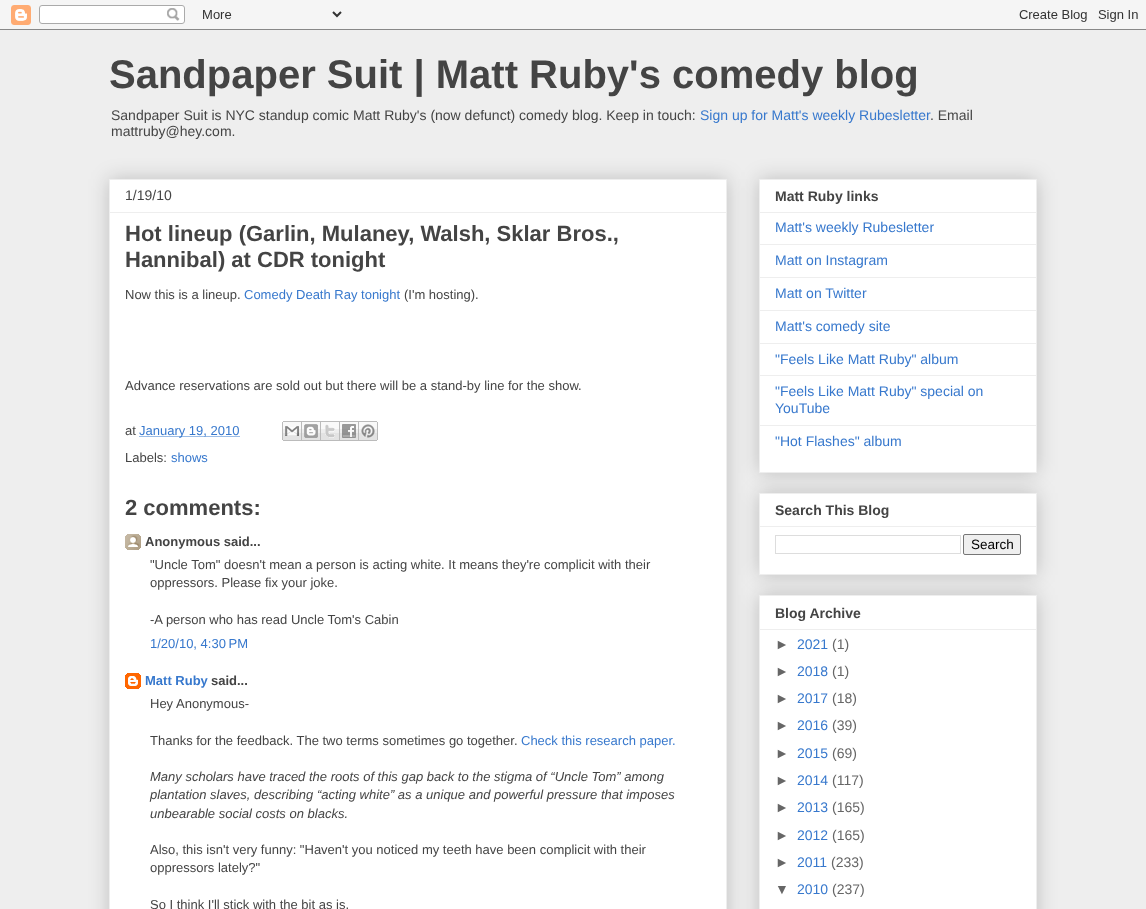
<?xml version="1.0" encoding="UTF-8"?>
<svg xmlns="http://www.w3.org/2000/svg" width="1146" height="909">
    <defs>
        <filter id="blur1" x="-50%" y="-200%" width="200%" height="500%"><feGaussianBlur stdDeviation="10"/></filter>
    </defs>
    <rect width="100%" height="100%" fill="#EEEEEE"/>
    <image x="0" y="0" width="1146" height="30" href="img_01.png"/>
    <text x="109" y="88" font-family="Liberation Sans" font-size="40" font-weight="700" fill="#444444">Sandpaper Suit | Matt Ruby's comedy blog</text>
    <text x="111" y="120" font-family="Liberation Sans" font-size="14" fill="#444444">Sandpaper Suit is NYC standup comic Matt Ruby's (now defunct) comedy blog. Keep in touch:</text>
    <text x="700" y="120" font-family="Liberation Sans" font-size="14" fill="#3778CD">Sign up for Matt's weekly Rubesletter</text>
    <text x="930" y="120" font-family="Liberation Sans" font-size="14" fill="#444444">. Email</text>
    <text x="111" y="136" font-family="Liberation Sans" font-size="14" fill="#444444">mattruby@hey.com.</text>
    <rect x="109" y="179" width="618" height="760" fill="#000000" fill-opacity="0.2" filter="url(#blur1)"/>
    <rect x="109.5" y="179.5" width="617" height="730" fill="#FFFFFF" stroke="#EEEEEE"/>
    <text x="125" y="200" font-family="Liberation Sans" font-size="14" fill="#444444">1/19/10</text>
    <rect x="110" y="212" width="616" height="1" fill="#EEEEEE"/>
    <text font-family="Liberation Sans" font-size="22" font-weight="700" fill="#444444">
        <tspan x="125" y="241">Hot lineup (Garlin, Mulaney, Walsh, Sklar Bros.,</tspan>
        <tspan x="125" y="267">Hannibal) at CDR tonight</tspan>
    </text>
    <text x="125" y="299" font-family="Liberation Sans" font-size="13" fill="#444444">Now this is a lineup.</text>
    <text x="244" y="299" font-family="Liberation Sans" font-size="13" fill="#3778CD">Comedy Death Ray tonight</text>
    <text x="404" y="299" font-family="Liberation Sans" font-size="13" fill="#444444">(I'm hosting).</text>
    <text x="125" y="390" font-family="Liberation Sans" font-size="13" fill="#444444">Advance reservations are sold out but there will be a stand-by line for the show.</text>
    <text x="125" y="435" font-family="Liberation Sans" font-size="13" fill="#444444">at</text>
    <path d="M 139.5 436.5 H 240" fill="none" stroke="#3778CD" stroke-dasharray="1 1"/>
    <text x="139" y="435" font-family="Liberation Sans" font-size="13" fill="#3778CD">January 19, 2010</text>
    <image x="282" y="421" width="20" height="20" href="img_02.png"/>
    <image x="302" y="421" width="19" height="20" href="img_03.png"/>
    <image x="321" y="421" width="19" height="20" href="img_04.png"/>
    <image x="340" y="421" width="19" height="20" href="img_05.png"/>
    <image x="359" y="421" width="19" height="20" href="img_06.png"/>
    <text x="125" y="462" font-family="Liberation Sans" font-size="13" fill="#444444">Labels:</text>
    <text x="171" y="462" font-family="Liberation Sans" font-size="13" fill="#3778CD">shows</text>
    <text x="125" y="515" font-family="Liberation Sans" font-size="22" font-weight="700" fill="#444444">2 comments:</text>
    <image x="125" y="534" width="16" height="16" href="img_07.png"/>
    <text x="145" y="546" font-family="Liberation Sans" font-size="13" font-weight="700" fill="#444444">Anonymous said...</text>
    <text font-family="Liberation Sans" font-size="13" fill="#444444">
        <tspan x="150" y="569">"Uncle Tom" doesn't mean a person is acting white. It means they're complicit with their</tspan>
        <tspan x="150" y="587">oppressors. Please fix your joke.</tspan>
    </text>
    <text x="150" y="624" font-family="Liberation Sans" font-size="13" fill="#444444">-A person who has read Uncle Tom's Cabin</text>
    <text x="150" y="648" font-family="Liberation Sans" font-size="13" fill="#3778CD">1/20/10, 4:30 PM</text>
    <image x="125" y="673" width="16" height="16" href="img_08.png"/>
    <text x="145" y="685" font-family="Liberation Sans" font-size="13" font-weight="700" fill="#3778CD">Matt Ruby</text>
    <text x="211" y="685" font-family="Liberation Sans" font-size="13" font-weight="700" fill="#444444">said...</text>
    <text x="150" y="708" font-family="Liberation Sans" font-size="13" fill="#444444">Hey Anonymous-</text>
    <text x="150" y="745" font-family="Liberation Sans" font-size="13" fill="#444444">Thanks for the feedback. The two terms sometimes go together.</text>
    <text x="521" y="745" font-family="Liberation Sans" font-size="13" fill="#3778CD">Check this research paper.</text>
    <text font-family="Liberation Sans" font-size="13" font-style="italic" fill="#444444">
        <tspan x="150" y="781">Many scholars have traced the roots of this gap back to the stigma of “Uncle Tom” among</tspan>
        <tspan x="150" y="799">plantation slaves, describing “acting white” as a unique and powerful pressure that imposes</tspan>
        <tspan x="150" y="818">unbearable social costs on blacks.</tspan>
    </text>
    <text font-family="Liberation Sans" font-size="13" fill="#444444">
        <tspan x="150" y="854">Also, this isn't very funny: "Haven't you noticed my teeth have been complicit with their</tspan>
        <tspan x="150" y="872">oppressors lately?"</tspan>
    </text>
    <text x="150" y="909" font-family="Liberation Sans" font-size="13" fill="#444444">So I think I'll stick with the bit as is.</text>
    <rect x="759" y="179" width="278" height="294" fill="#000000" fill-opacity="0.2" filter="url(#blur1)"/>
    <rect x="759.5" y="179.5" width="277" height="293" fill="#FFFFFF" stroke="#EEEEEE"/>
    <text x="775" y="201" font-family="Liberation Sans" font-size="14" font-weight="700" fill="#444444">Matt Ruby links</text>
    <rect x="760" y="212" width="276" height="1" fill="#EEEEEE"/>
    <text x="775" y="232" font-family="Liberation Sans" font-size="14" fill="#3778CD">Matt's weekly Rubesletter</text>
    <rect x="760" y="244" width="276" height="1" fill="#EEEEEE"/>
    <text x="775" y="265" font-family="Liberation Sans" font-size="14" fill="#3778CD">Matt on Instagram</text>
    <rect x="760" y="277" width="276" height="1" fill="#EEEEEE"/>
    <text x="775" y="298" font-family="Liberation Sans" font-size="14" fill="#3778CD">Matt on Twitter</text>
    <rect x="760" y="310" width="276" height="1" fill="#EEEEEE"/>
    <text x="775" y="331" font-family="Liberation Sans" font-size="14" fill="#3778CD">Matt's comedy site</text>
    <rect x="760" y="343" width="276" height="1" fill="#EEEEEE"/>
    <text x="775" y="364" font-family="Liberation Sans" font-size="14" fill="#3778CD">"Feels Like Matt Ruby" album</text>
    <rect x="760" y="375" width="276" height="1" fill="#EEEEEE"/>
    <text font-family="Liberation Sans" font-size="14" fill="#3778CD">
        <tspan x="775" y="396">"Feels Like Matt Ruby" special on</tspan>
        <tspan x="775" y="413">YouTube</tspan>
    </text>
    <rect x="760" y="425" width="276" height="1" fill="#EEEEEE"/>
    <text x="775" y="446" font-family="Liberation Sans" font-size="14" fill="#3778CD">"Hot Flashes" album</text>
    <rect x="759" y="493" width="278" height="82" fill="#000000" fill-opacity="0.2" filter="url(#blur1)"/>
    <rect x="759.5" y="493.5" width="277" height="81" fill="#FFFFFF" stroke="#EEEEEE"/>
    <text x="775" y="515" font-family="Liberation Sans" font-size="14" font-weight="700" fill="#444444">Search This Blog</text>
    <rect x="760" y="526" width="276" height="1" fill="#EEEEEE"/>
    <rect x="775.5" y="535.5" width="185" height="18" fill="none" stroke="#DDDDDD"/>
    <rect x="963.5" y="534.5" width="57" height="20" rx="1.5" fill="#EFEFEF" stroke="#767676"/>
    <text x="971" y="549" font-family="Liberation Sans" font-size="13.5" fill="#000000">Search</text>
    <rect x="759" y="595" width="278" height="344" fill="#000000" fill-opacity="0.2" filter="url(#blur1)"/>
    <rect x="759.5" y="595.5" width="277" height="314" fill="#FFFFFF" stroke="#EEEEEE"/>
    <text x="775" y="618" font-family="Liberation Sans" font-size="14" font-weight="700" fill="#444444">Blog Archive</text>
    <rect x="760" y="629" width="276" height="1" fill="#EEEEEE"/>
    <text x="775" y="649" font-family="Liberation Sans" font-size="14" fill="#666666">►</text>
    <text x="797" y="649" font-family="Liberation Sans" font-size="14" fill="#3778CD">2021</text>
    <text x="832" y="649" font-family="Liberation Sans" font-size="14" fill="#666666">(1)</text>
    <text x="775" y="676" font-family="Liberation Sans" font-size="14" fill="#666666">►</text>
    <text x="797" y="676" font-family="Liberation Sans" font-size="14" fill="#3778CD">2018</text>
    <text x="832" y="676" font-family="Liberation Sans" font-size="14" fill="#666666">(1)</text>
    <text x="775" y="703" font-family="Liberation Sans" font-size="14" fill="#666666">►</text>
    <text x="797" y="703" font-family="Liberation Sans" font-size="14" fill="#3778CD">2017</text>
    <text x="832" y="703" font-family="Liberation Sans" font-size="14" fill="#666666">(18)</text>
    <text x="775" y="730" font-family="Liberation Sans" font-size="14" fill="#666666">►</text>
    <text x="797" y="730" font-family="Liberation Sans" font-size="14" fill="#3778CD">2016</text>
    <text x="832" y="730" font-family="Liberation Sans" font-size="14" fill="#666666">(39)</text>
    <text x="775" y="758" font-family="Liberation Sans" font-size="14" fill="#666666">►</text>
    <text x="797" y="758" font-family="Liberation Sans" font-size="14" fill="#3778CD">2015</text>
    <text x="832" y="758" font-family="Liberation Sans" font-size="14" fill="#666666">(69)</text>
    <text x="775" y="785" font-family="Liberation Sans" font-size="14" fill="#666666">►</text>
    <text x="797" y="785" font-family="Liberation Sans" font-size="14" fill="#3778CD">2014</text>
    <text x="832" y="785" font-family="Liberation Sans" font-size="14" fill="#666666">(117)</text>
    <text x="775" y="812" font-family="Liberation Sans" font-size="14" fill="#666666">►</text>
    <text x="797" y="812" font-family="Liberation Sans" font-size="14" fill="#3778CD">2013</text>
    <text x="832" y="812" font-family="Liberation Sans" font-size="14" fill="#666666">(165)</text>
    <text x="775" y="840" font-family="Liberation Sans" font-size="14" fill="#666666">►</text>
    <text x="797" y="840" font-family="Liberation Sans" font-size="14" fill="#3778CD">2012</text>
    <text x="832" y="840" font-family="Liberation Sans" font-size="14" fill="#666666">(165)</text>
    <text x="775" y="867" font-family="Liberation Sans" font-size="14" fill="#666666">►</text>
    <text x="797" y="867" font-family="Liberation Sans" font-size="14" fill="#3778CD">2011</text>
    <text x="831" y="867" font-family="Liberation Sans" font-size="14" fill="#666666">(233)</text>
    <text x="775" y="894" font-family="Liberation Sans" font-size="14" fill="#666666">▼</text>
    <text x="797" y="894" font-family="Liberation Sans" font-size="14" fill="#3778CD">2010</text>
    <text x="832" y="894" font-family="Liberation Sans" font-size="14" fill="#666666">(237)</text>
</svg>
